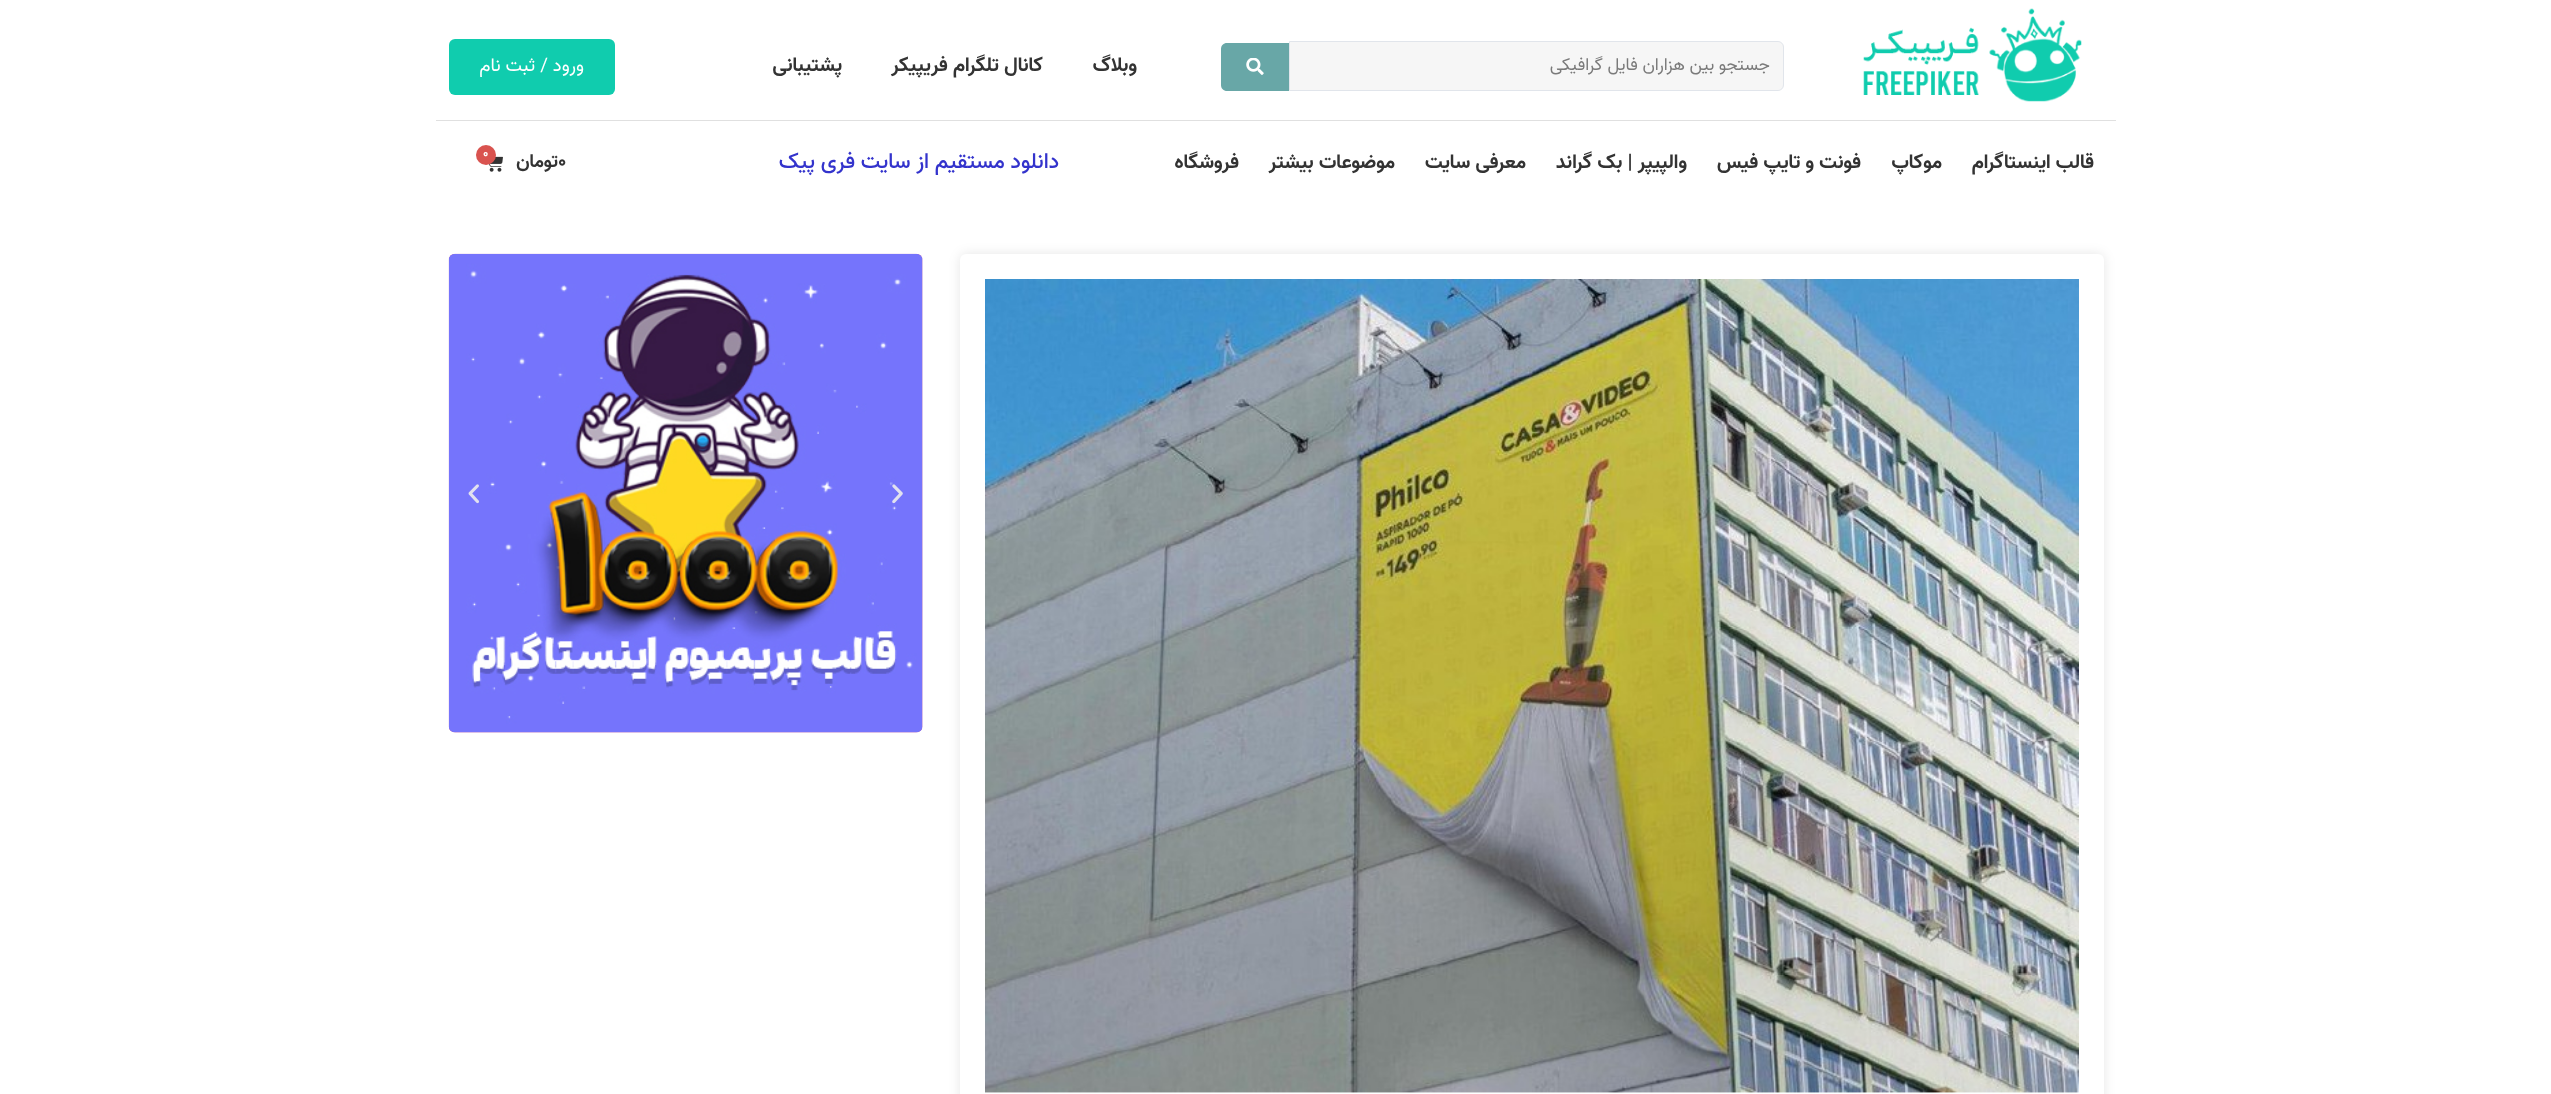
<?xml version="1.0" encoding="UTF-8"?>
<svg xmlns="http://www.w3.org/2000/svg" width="2551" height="1094">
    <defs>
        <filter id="blur1" x="-50%" y="-200%" width="200%" height="500%"><feGaussianBlur stdDeviation="6"/></filter>
    </defs>
    <rect width="100%" height="100%" fill="#FFFFFF"/>
    <image x="1863" y="8" width="219" height="94" href="img_01.png"/>
    <path d="M 1289.5 41.5 H 1778 C 1781 41.5 1783.5 44 1783.5 47 V 85 C 1783.5 88 1781 90.5 1778 90.5 H 1289.5 Z" fill="#F6F6F6" stroke="#E1E5EB"/>
    <text x="1770" y="70" font-family="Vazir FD" font-size="17.5" direction="rtl" fill="#7A7A7A">جستجو بین هزاران فایل گرافیکی</text>
    <path d="M 1227 43 H 1289 V 91 H 1227 C 1223.5 91 1221 88.5 1221 85 V 49 C 1221 45.5 1223.5 43 1227 43 Z" fill="#68A7A7"/>
    <image x="1246" y="58" width="18" height="17" href="img_02.png"/>
    <text x="1137" y="71" font-family="Vazir FD" font-size="20" font-weight="700" direction="rtl" fill="#333333">وبلاگ</text>
    <text x="1043" y="71" font-family="Vazir FD" font-size="20" font-weight="700" direction="rtl" fill="#333333">کانال تلگرام فریپیکر</text>
    <text x="842" y="71" font-family="Vazir FD" font-size="20" font-weight="700" direction="rtl" fill="#333333">پشتیبانی</text>
    <rect x="449" y="39" width="166" height="56" rx="6" fill="#10CCAE"/>
    <text x="584" y="71" font-family="Vazir FD" font-size="18.75" direction="rtl" fill="#FFFFFF">ورود / ثبت نام</text>
    <rect x="436" y="120" width="1680" height="1" fill="#E0E0E0"/>
    <text x="2094" y="168" font-family="Vazir FD" font-size="20" font-weight="700" direction="rtl" fill="#333333">قالب اینستاگرام</text>
    <text x="1942" y="168" font-family="Vazir FD" font-size="20" font-weight="700" direction="rtl" fill="#333333">موکاپ</text>
    <text x="1861" y="168" font-family="Vazir FD" font-size="20" font-weight="700" direction="rtl" fill="#333333">فونت و تایپ فیس</text>
    <text x="1687" y="168" font-family="Vazir FD" font-size="20" font-weight="700" direction="rtl" fill="#333333">والپیپر | بک گراند</text>
    <text x="1526" y="168" font-family="Vazir FD" font-size="20" font-weight="700" direction="rtl" fill="#333333">معرفی سایت</text>
    <text x="1395" y="168" font-family="Vazir FD" font-size="20" font-weight="700" direction="rtl" fill="#333333">موضوعات بیشتر</text>
    <text x="1239" y="168" font-family="Vazir FD" font-size="20" font-weight="700" direction="rtl" fill="#333333">فروشگاه</text>
    <text x="1059" y="168" font-family="Vazir FD" font-size="22" font-weight="500" direction="rtl" fill="#3333CC">دانلود مستقیم از سایت فری پیک</text>
    <text x="558" y="167" font-family="Vazir FD" font-size="18.75" font-weight="700" fill="#333333">0</text>
    <text x="558" y="167" font-family="Vazir FD" font-size="18.75" font-weight="700" direction="rtl" fill="#333333">تومان</text>
    <image x="489" y="156" width="14" height="16" href="img_03.png"/>
    <circle cx="486" cy="155" r="10" fill="#D9534F"/>
    <text x="483" y="157" font-family="Vazir FD" font-size="12" font-weight="700" fill="#FFFFFF">0</text>
    <rect x="960" y="254" width="1144" height="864" rx="6" fill="#000000" fill-opacity="0.1" filter="url(#blur1)"/>
    <rect x="960" y="254" width="1144" height="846" rx="6" fill="#FFFFFF"/>
    <image x="985" y="279" width="1094" height="814" href="img_04.png"/>
    <image x="448" y="253" width="475" height="480" href="img_05.png"/>
    <image x="448" y="253" width="475" height="480" href="img_06.png"/>
    <image x="892" y="484" width="11" height="20" href="img_07.png"/>
    <image x="468" y="484" width="11" height="20" href="img_08.png"/>
</svg>
